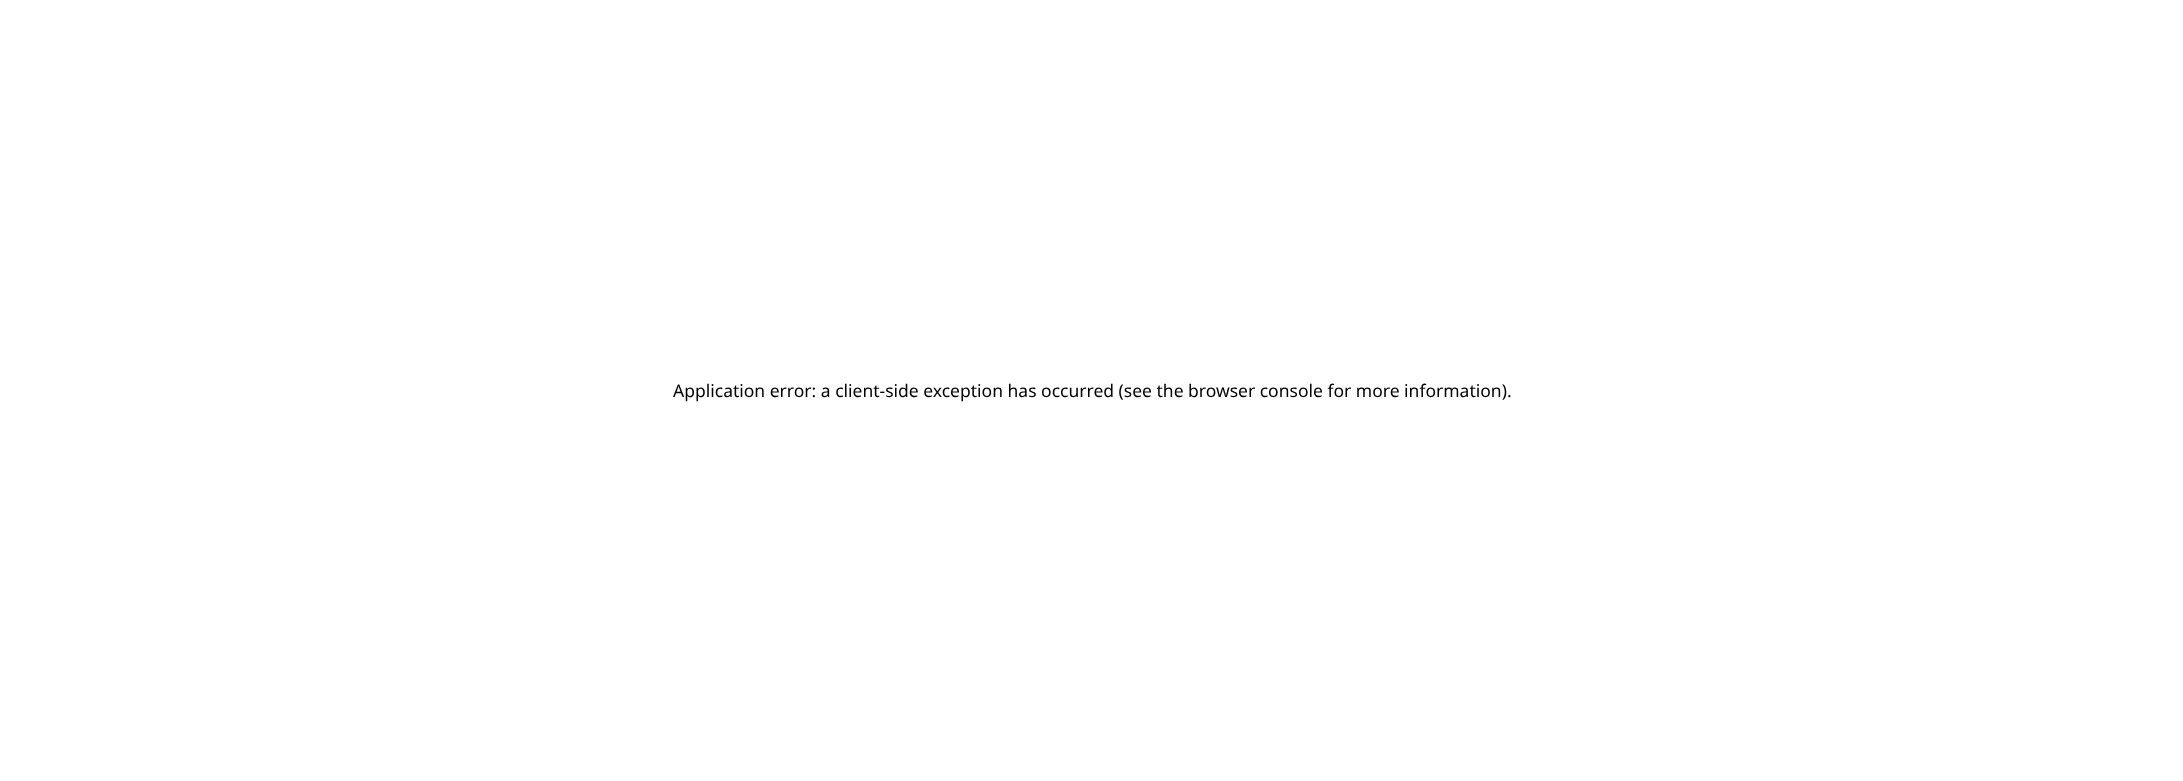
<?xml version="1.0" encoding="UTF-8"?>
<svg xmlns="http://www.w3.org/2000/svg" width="2183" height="781">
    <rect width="100%" height="100%" fill="#FFFFFF"/>
    <text x="673" y="397" font-family="Noto Sans" font-size="17.5" fill="#000000">Application error: a client-side exception has occurred (see the browser console for more information).</text>
</svg>
